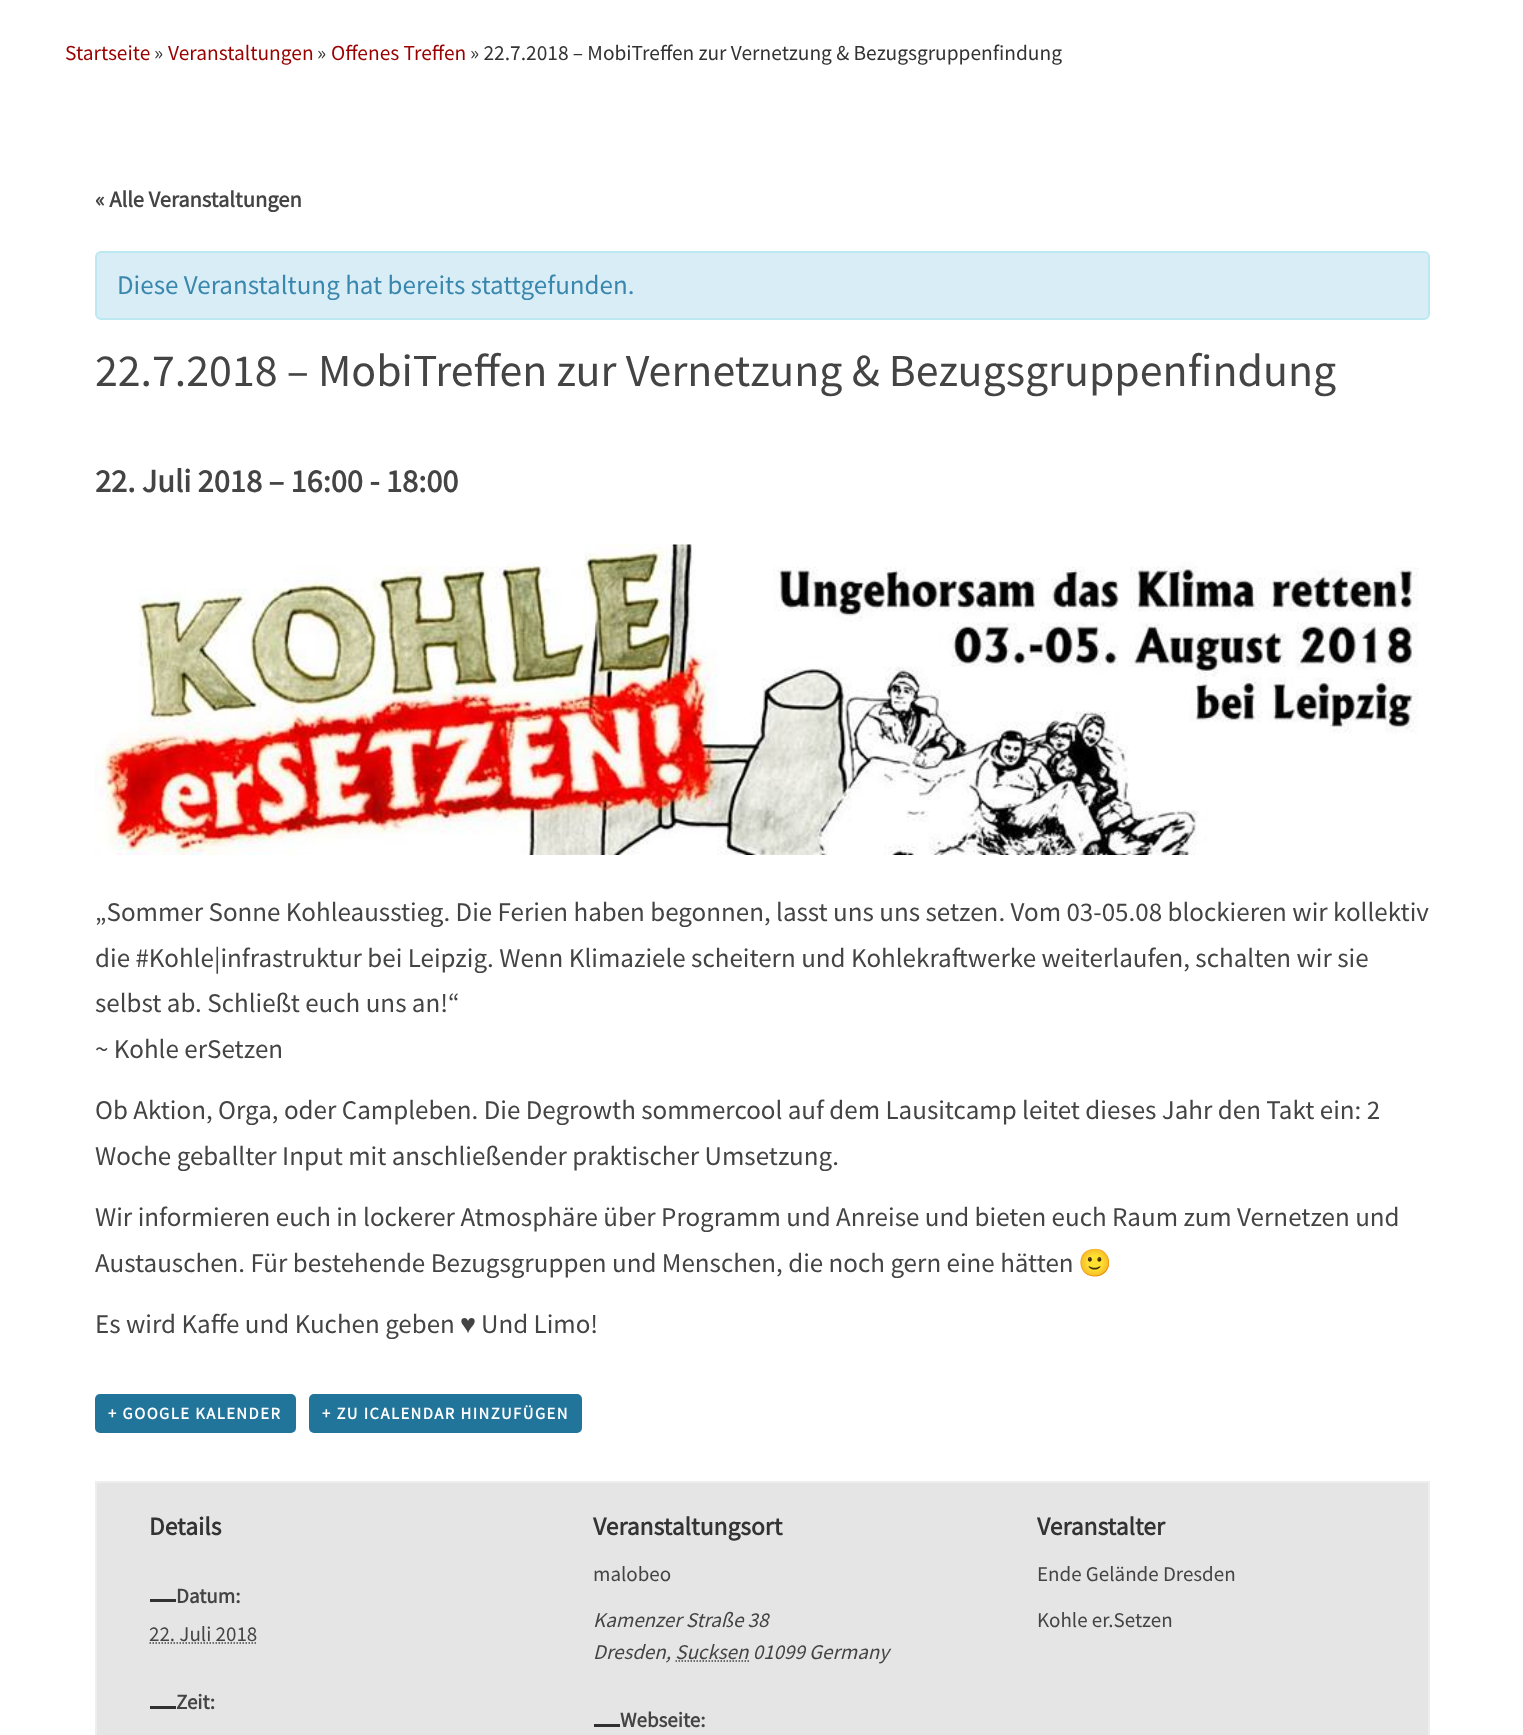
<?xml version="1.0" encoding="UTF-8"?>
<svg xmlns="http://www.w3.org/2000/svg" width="1523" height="1735">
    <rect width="100%" height="100%" fill="#FFFFFF"/>
    <text x="65" y="60" font-family="Source Sans Pro" font-size="21.4" fill="#9A0000">Startseite</text>
    <text x="154" y="60" font-family="Source Sans Pro" font-size="21.4" fill="#333333">»</text>
    <text x="168" y="60" font-family="Source Sans Pro" font-size="21.4" fill="#9A0000">Veranstaltungen</text>
    <text x="317" y="60" font-family="Source Sans Pro" font-size="21.4" fill="#333333">»</text>
    <text x="331" y="60" font-family="Source Sans Pro" font-size="21.4" fill="#9A0000">Offenes Treffen</text>
    <text x="470" y="60" font-family="Source Sans Pro" font-size="21.4" fill="#333333">» 22.7.2018 – MobiTreffen zur Vernetzung &amp; Bezugsgruppenfindung</text>
    <text x="95" y="207" font-family="Source Sans Pro" font-size="22.5" font-weight="700" fill="#444444">« Alle Veranstaltungen</text>
    <rect x="96" y="252" width="1333" height="67" rx="5" fill="#D9EDF7" stroke="#BCE8F1" stroke-width="2"/>
    <text x="117" y="294" font-family="Source Sans Pro" font-size="27" fill="#3A87AD">Diese Veranstaltung hat bereits stattgefunden.</text>
    <text x="95" y="386" font-family="Source Sans Pro" font-size="45.9" fill="#444444">22.7.2018 – MobiTreffen zur Vernetzung &amp; Bezugsgruppenfindung</text>
    <text x="95" y="492" font-family="Source Sans Pro" font-size="32.4" font-weight="700" fill="#444444">22. Juli 2018 – 16:00 - 18:00</text>
    <image x="94" y="544" width="1325" height="311" href="img_01.png"/>
    <text font-family="Source Sans Pro" font-size="27" fill="#444444">
        <tspan x="95" y="921">„Sommer Sonne Kohleausstieg. Die Ferien haben begonnen, lasst uns uns setzen. Vom 03-05.08 blockieren wir kollektiv</tspan>
        <tspan x="95" y="967">die #Kohle|infrastruktur bei Leipzig. Wenn Klimaziele scheitern und Kohlekraftwerke weiterlaufen, schalten wir sie</tspan>
        <tspan x="95" y="1012">selbst ab. Schließt euch uns an!“</tspan>
        <tspan x="95" y="1058">~ Kohle erSetzen</tspan>
    </text>
    <text font-family="Source Sans Pro" font-size="27" fill="#444444">
        <tspan x="95" y="1119">Ob Aktion, Orga, oder Campleben. Die Degrowth sommercool auf dem Lausitcamp leitet dieses Jahr den Takt ein: 2</tspan>
        <tspan x="95" y="1165">Woche geballter Input mit anschließender praktischer Umsetzung.</tspan>
    </text>
    <text font-family="Source Sans Pro" font-size="27" fill="#444444">
        <tspan x="95" y="1226">Wir informieren euch in lockerer Atmosphäre über Programm und Anreise und bieten euch Raum zum Vernetzen und</tspan>
        <tspan x="95" y="1272">Austauschen. Für bestehende Bezugsgruppen und Menschen, die noch gern eine hätten</tspan>
    </text>
    <text x="1078" y="1272" font-family="Noto Color Emoji" font-size="27" fill="#444444">🙂</text>
    <text x="95" y="1333" font-family="Source Sans Pro" font-size="27" fill="#444444">Es wird Kaffe und Kuchen geben</text>
    <text x="460" y="1333" font-family="Liberation Sans" font-size="27" fill="#444444">♥</text>
    <text x="481" y="1333" font-family="Source Sans Pro" font-size="27" fill="#444444">Und Limo!</text>
    <rect x="95" y="1394" width="201" height="39" rx="5" fill="#21759B"/>
    <text x="108" y="1419" font-family="Source Sans Pro" font-size="16.5" font-weight="700" letter-spacing="1.5" fill="#FFFFFF">+ GOOGLE KALENDER</text>
    <rect x="309" y="1394" width="273" height="39" rx="5" fill="#21759B"/>
    <text x="322" y="1419" font-family="Source Sans Pro" font-size="16.5" font-weight="700" letter-spacing="1.5" fill="#FFFFFF">+ ZU ICALENDAR HINZUFÜGEN</text>
    <rect x="96" y="1482" width="1333" height="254" fill="#E5E5E5" stroke="#EEEEEE" stroke-width="2"/>
    <text x="149" y="1535" font-family="Source Sans Pro" font-size="25.5" font-weight="700" fill="#333333">Details</text>
    <rect x="150" y="1599" width="26" height="3" fill="#313131"/>
    <text x="176" y="1603" font-family="Source Sans Pro" font-size="21" font-weight="700" fill="#444444">Datum:</text>
    <text x="149" y="1641" font-family="Source Sans Pro" font-size="21" fill="#444444">22. Juli 2018</text>
    <path d="M 149.5 1643 H 257.5" fill="none" stroke="#444444" stroke-width="1.5" stroke-dasharray="1.5 1.5"/>
    <rect x="150" y="1706" width="26" height="3" fill="#313131"/>
    <text x="176" y="1709" font-family="Source Sans Pro" font-size="21" font-weight="700" fill="#444444">Zeit:</text>
    <text x="593" y="1535" font-family="Source Sans Pro" font-size="25.5" font-weight="700" fill="#333333">Veranstaltungsort</text>
    <text x="593" y="1581" font-family="Source Sans Pro" font-size="21" fill="#444444">malobeo</text>
    <text font-family="Source Sans Pro" font-size="21" font-style="italic" fill="#444444">
        <tspan x="593" y="1627">Kamenzer Straße 38</tspan>
        <tspan x="593" y="1659">Dresden, Sucksen 01099 Germany</tspan>
    </text>
    <path d="M 675.5 1661 H 749" fill="none" stroke="#444444" stroke-width="1.5" stroke-dasharray="1.5 1.5"/>
    <rect x="594" y="1724" width="26" height="3" fill="#313131"/>
    <text x="620" y="1727" font-family="Source Sans Pro" font-size="21" font-weight="700" fill="#444444">Webseite:</text>
    <text x="1037" y="1535" font-family="Source Sans Pro" font-size="25.5" font-weight="700" fill="#333333">Veranstalter</text>
    <text x="1037" y="1581" font-family="Source Sans Pro" font-size="21" fill="#444444">Ende Gelände Dresden</text>
    <text x="1037" y="1627" font-family="Source Sans Pro" font-size="21" fill="#444444">Kohle er.Setzen</text>
</svg>
